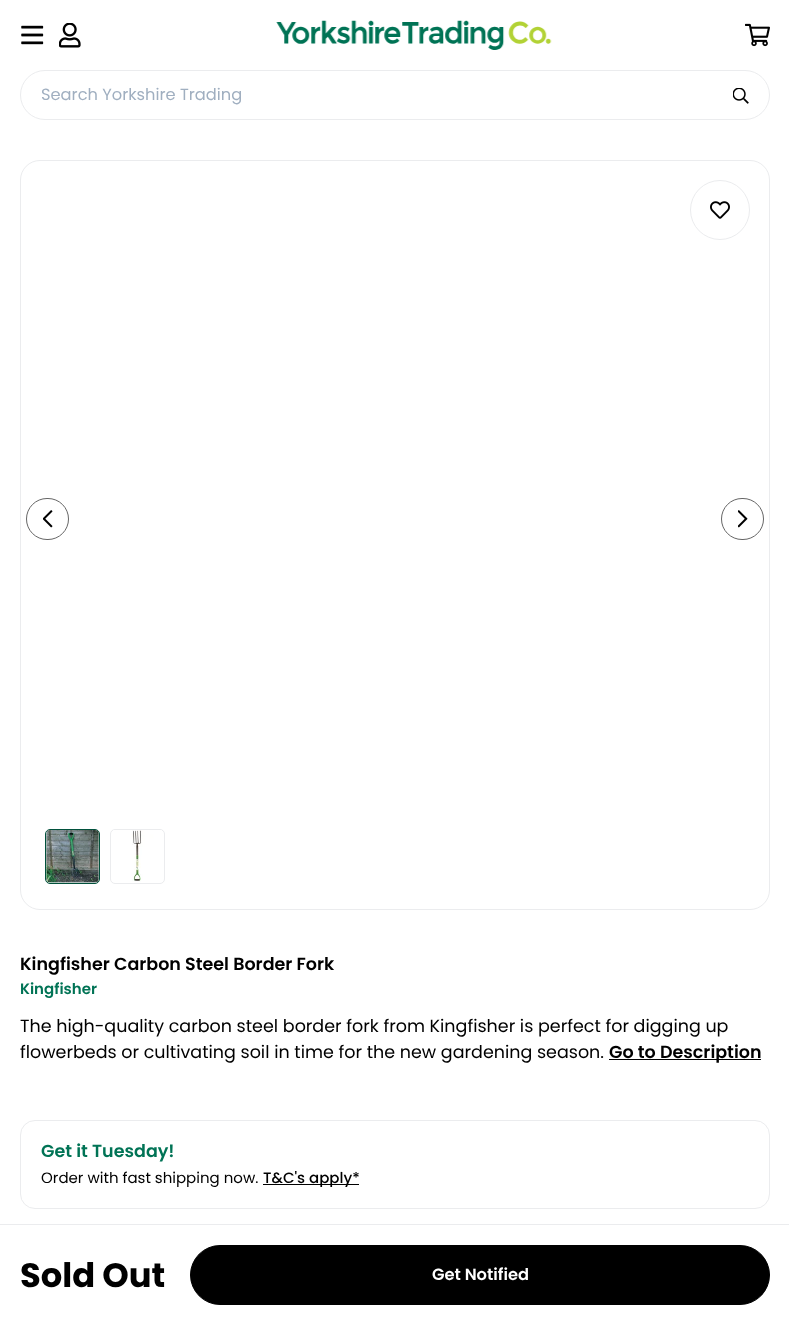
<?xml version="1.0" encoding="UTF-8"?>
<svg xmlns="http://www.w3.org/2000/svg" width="789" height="1325">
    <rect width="100%" height="100%" fill="#FFFFFF"/>
    <image x="21" y="25" width="23" height="20" href="img_01.png"/>
    <image x="59" y="23" width="22" height="25" href="img_02.png"/>
    <image x="276" y="20" width="276" height="30" href="img_03.png"/>
    <image x="745" y="23" width="25" height="24" href="img_04.png"/>
    <rect x="20.5" y="70.5" width="749" height="49" rx="24.5" fill="none" stroke="#EBECEE"/>
    <text x="41" y="100" font-family="Poppins" font-size="16.25" fill="#A0AFC0">Search Yorkshire Trading</text>
    <image x="733" y="88" width="16" height="16" href="img_05.png"/>
    <rect x="20.5" y="160.5" width="749" height="749" rx="19.5" fill="none" stroke="#EBECEE"/>
    <rect x="26.5" y="498.5" width="42" height="41" rx="20.5" fill="none" stroke="#666666"/>
    <image x="43" y="510" width="10" height="18" href="img_06.png"/>
    <rect x="721.5" y="498.5" width="42" height="41" rx="20.5" fill="none" stroke="#666666"/>
    <image x="738" y="510" width="10" height="18" href="img_07.png"/>
    <rect x="45.5" y="829.5" width="54" height="54" rx="4.5" fill="none" stroke="#01513C"/>
    <image x="46" y="830" width="53" height="53" href="img_08.png"/>
    <rect x="46" y="830" width="53" height="53" rx="4" fill="#01513C" fill-opacity="0.17"/>
    <rect x="110.5" y="829.5" width="54" height="54" rx="4.5" fill="none" stroke="#EBECEE"/>
    <image x="113" y="830" width="49" height="52" href="img_09.png"/>
    <circle cx="720" cy="210" r="29.5" fill="none" stroke="#EBECEE"/>
    <image x="710" y="201" width="20" height="18" href="img_10.png"/>
    <text x="20" y="970" font-family="Poppins" font-size="17.5" font-weight="600" fill="#000000">Kingfisher Carbon Steel Border Fork</text>
    <text x="20" y="994" font-family="Poppins" font-size="15" font-weight="600" fill="#007355">Kingfisher</text>
    <text font-family="Poppins" font-size="17.5" fill="#000000">
        <tspan x="20" y="1032">The high-quality carbon steel border fork from Kingfisher is perfect for digging up</tspan>
        <tspan x="20" y="1058">flowerbeds or cultivating soil in time for the new gardening season.</tspan>
    </text>
    <rect x="609" y="1059" width="152" height="1" fill="#000000"/>
    <text x="609" y="1058" font-family="Poppins" font-size="17.5" font-weight="600" fill="#000000">Go to Description</text>
    <rect x="20.5" y="1120.5" width="749" height="88" rx="14.5" fill="none" stroke="#EBECEE"/>
    <text x="41" y="1157" font-family="Poppins" font-size="17.5" font-weight="600" fill="#007355">Get it Tuesday!</text>
    <text x="41" y="1183" font-family="Poppins" font-size="15" fill="#000000">Order with fast shipping now.</text>
    <rect x="263" y="1184" width="96" height="1" fill="#000000"/>
    <text x="263" y="1183" font-family="Poppins" font-size="15" font-weight="500" fill="#000000">T&amp;C's apply*</text>
    <rect x="0" y="1224" width="789" height="1" fill="#EBECEE"/>
    <text x="20" y="1287" font-family="Poppins" font-size="33.75" font-weight="700" fill="#000000">Sold Out</text>
    <rect x="190.5" y="1245.5" width="579" height="59" rx="29.5" fill="#000000" stroke="#000000"/>
    <text x="432" y="1280" font-family="Poppins" font-size="16.25" font-weight="600" fill="#FFFFFF">Get Notified</text>
</svg>
